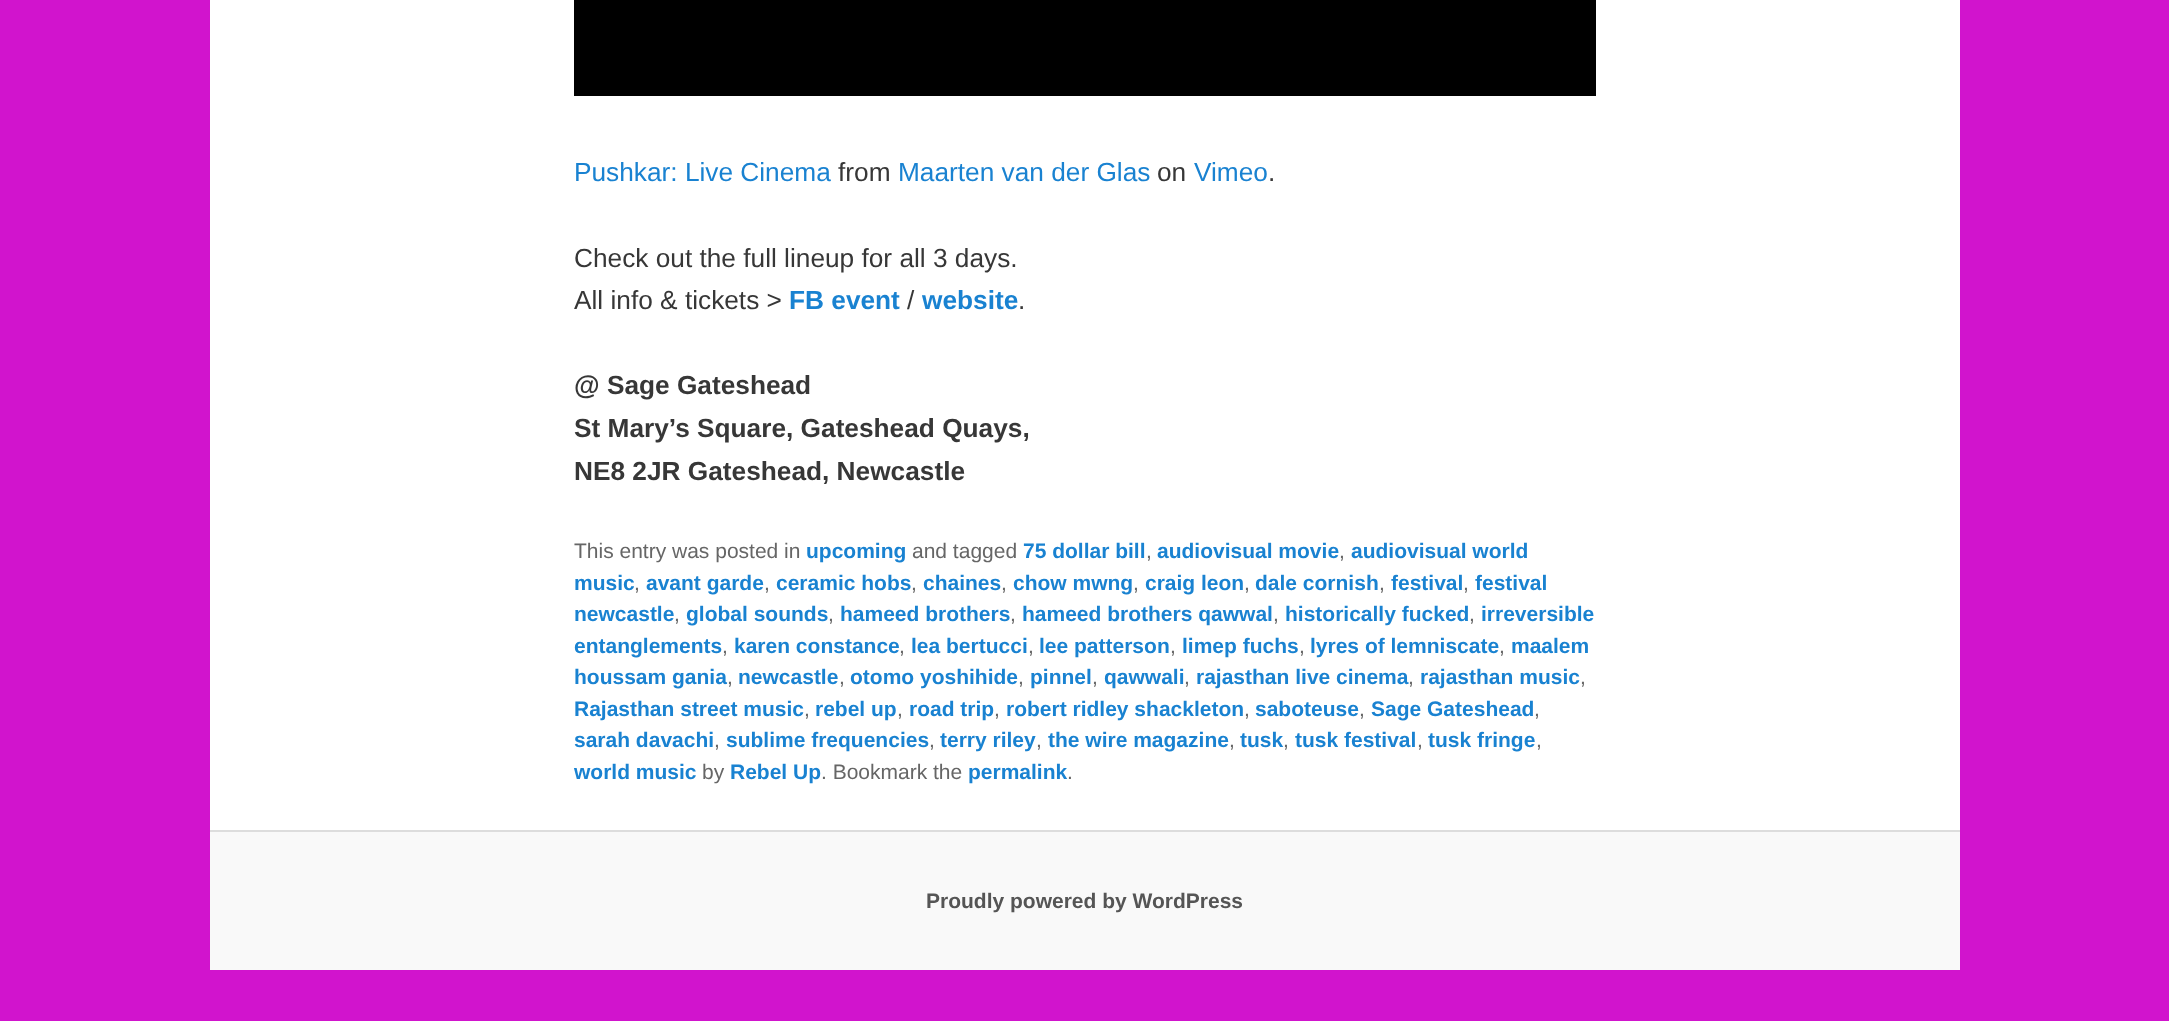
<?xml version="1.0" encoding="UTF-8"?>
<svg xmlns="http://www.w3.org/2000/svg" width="2169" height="1021">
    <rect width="100%" height="100%" fill="#D114CD"/>
    <rect x="210" y="0" width="1750" height="830" fill="#FFFFFF"/>
    <rect x="574" y="0" width="1022" height="96" fill="#000000"/>
    <text x="574" y="181" font-family="Liberation Sans" font-size="26.25" fill="#1982D1">Pushkar: Live Cinema</text>
    <text x="838" y="181" font-family="Liberation Sans" font-size="26.25" fill="#373737">from</text>
    <text x="898" y="181" font-family="Liberation Sans" font-size="26.25" fill="#1982D1">Maarten van der Glas</text>
    <text x="1157" y="181" font-family="Liberation Sans" font-size="26.25" fill="#373737">on</text>
    <text x="1194" y="181" font-family="Liberation Sans" font-size="26.25" fill="#1982D1">Vimeo</text>
    <text x="1268" y="181" font-family="Liberation Sans" font-size="26.25" fill="#373737">.</text>
    <text font-family="Liberation Sans" font-size="26.25" fill="#373737">
        <tspan x="574" y="267">Check out the full lineup for all 3 days.</tspan>
        <tspan x="574" y="309">All info &amp; tickets &gt;</tspan>
    </text>
    <text x="789" y="309" font-family="Liberation Sans" font-size="26.25" font-weight="700" fill="#1982D1">FB event</text>
    <text x="907" y="309" font-family="Liberation Sans" font-size="26.25" fill="#373737">/</text>
    <text x="922" y="309" font-family="Liberation Sans" font-size="26.25" font-weight="700" fill="#1982D1">website</text>
    <text x="1018" y="309" font-family="Liberation Sans" font-size="26.25" fill="#373737">.</text>
    <text font-family="Liberation Sans" font-size="26.25" font-weight="700" fill="#373737">
        <tspan x="574" y="394">@ Sage Gateshead</tspan>
        <tspan x="574" y="437">St Mary’s Square, Gateshead Quays,</tspan>
        <tspan x="574" y="480">NE8 2JR Gateshead, Newcastle</tspan>
    </text>
    <text x="574" y="558" font-family="Liberation Sans" font-size="21" fill="#666666">This entry was posted in</text>
    <text x="806" y="558" font-family="Liberation Sans" font-size="21" font-weight="700" fill="#1982D1">upcoming</text>
    <text x="912" y="558" font-family="Liberation Sans" font-size="21" fill="#666666">and tagged</text>
    <text x="1023" y="558" font-family="Liberation Sans" font-size="21" font-weight="700" fill="#1982D1">75 dollar bill</text>
    <text x="1146" y="558" font-family="Liberation Sans" font-size="21" fill="#666666">,</text>
    <text x="1157" y="558" font-family="Liberation Sans" font-size="21" font-weight="700" fill="#1982D1">audiovisual movie</text>
    <text x="1339" y="558" font-family="Liberation Sans" font-size="21" fill="#666666">,</text>
    <text x="1351" y="558" font-family="Liberation Sans" font-size="21" font-weight="700" fill="#1982D1">audiovisual world</text>
    <text x="574" y="590" font-family="Liberation Sans" font-size="21" font-weight="700" fill="#1982D1">music</text>
    <text x="634" y="590" font-family="Liberation Sans" font-size="21" fill="#666666">,</text>
    <text x="646" y="590" font-family="Liberation Sans" font-size="21" font-weight="700" fill="#1982D1">avant garde</text>
    <text x="764" y="590" font-family="Liberation Sans" font-size="21" fill="#666666">,</text>
    <text x="776" y="590" font-family="Liberation Sans" font-size="21" font-weight="700" fill="#1982D1">ceramic hobs</text>
    <text x="911" y="590" font-family="Liberation Sans" font-size="21" fill="#666666">,</text>
    <text x="923" y="590" font-family="Liberation Sans" font-size="21" font-weight="700" fill="#1982D1">chaines</text>
    <text x="1001" y="590" font-family="Liberation Sans" font-size="21" fill="#666666">,</text>
    <text x="1013" y="590" font-family="Liberation Sans" font-size="21" font-weight="700" fill="#1982D1">chow mwng</text>
    <text x="1133" y="590" font-family="Liberation Sans" font-size="21" fill="#666666">,</text>
    <text x="1145" y="590" font-family="Liberation Sans" font-size="21" font-weight="700" fill="#1982D1">craig leon</text>
    <text x="1244" y="590" font-family="Liberation Sans" font-size="21" fill="#666666">,</text>
    <text x="1255" y="590" font-family="Liberation Sans" font-size="21" font-weight="700" fill="#1982D1">dale cornish</text>
    <text x="1379" y="590" font-family="Liberation Sans" font-size="21" fill="#666666">,</text>
    <text x="1391" y="590" font-family="Liberation Sans" font-size="21" font-weight="700" fill="#1982D1">festival</text>
    <text x="1463" y="590" font-family="Liberation Sans" font-size="21" fill="#666666">,</text>
    <text x="1475" y="590" font-family="Liberation Sans" font-size="21" font-weight="700" fill="#1982D1">festival</text>
    <text x="574" y="621" font-family="Liberation Sans" font-size="21" font-weight="700" fill="#1982D1">newcastle</text>
    <text x="674" y="621" font-family="Liberation Sans" font-size="21" fill="#666666">,</text>
    <text x="686" y="621" font-family="Liberation Sans" font-size="21" font-weight="700" fill="#1982D1">global sounds</text>
    <text x="828" y="621" font-family="Liberation Sans" font-size="21" fill="#666666">,</text>
    <text x="840" y="621" font-family="Liberation Sans" font-size="21" font-weight="700" fill="#1982D1">hameed brothers</text>
    <text x="1010" y="621" font-family="Liberation Sans" font-size="21" fill="#666666">,</text>
    <text x="1022" y="621" font-family="Liberation Sans" font-size="21" font-weight="700" fill="#1982D1">hameed brothers qawwal</text>
    <text x="1273" y="621" font-family="Liberation Sans" font-size="21" fill="#666666">,</text>
    <text x="1285" y="621" font-family="Liberation Sans" font-size="21" font-weight="700" fill="#1982D1">historically fucked</text>
    <text x="1469" y="621" font-family="Liberation Sans" font-size="21" fill="#666666">,</text>
    <text x="1481" y="621" font-family="Liberation Sans" font-size="21" font-weight="700" fill="#1982D1">irreversible</text>
    <text x="574" y="653" font-family="Liberation Sans" font-size="21" font-weight="700" fill="#1982D1">entanglements</text>
    <text x="722" y="653" font-family="Liberation Sans" font-size="21" fill="#666666">,</text>
    <text x="734" y="653" font-family="Liberation Sans" font-size="21" font-weight="700" fill="#1982D1">karen constance</text>
    <text x="899" y="653" font-family="Liberation Sans" font-size="21" fill="#666666">,</text>
    <text x="911" y="653" font-family="Liberation Sans" font-size="21" font-weight="700" fill="#1982D1">lea bertucci</text>
    <text x="1028" y="653" font-family="Liberation Sans" font-size="21" fill="#666666">,</text>
    <text x="1039" y="653" font-family="Liberation Sans" font-size="21" font-weight="700" fill="#1982D1">lee patterson</text>
    <text x="1170" y="653" font-family="Liberation Sans" font-size="21" fill="#666666">,</text>
    <text x="1182" y="653" font-family="Liberation Sans" font-size="21" font-weight="700" fill="#1982D1">limep fuchs</text>
    <text x="1299" y="653" font-family="Liberation Sans" font-size="21" fill="#666666">,</text>
    <text x="1310" y="653" font-family="Liberation Sans" font-size="21" font-weight="700" fill="#1982D1">lyres of lemniscate</text>
    <text x="1499" y="653" font-family="Liberation Sans" font-size="21" fill="#666666">,</text>
    <text x="1511" y="653" font-family="Liberation Sans" font-size="21" font-weight="700" fill="#1982D1">maalem</text>
    <text x="574" y="684" font-family="Liberation Sans" font-size="21" font-weight="700" fill="#1982D1">houssam gania</text>
    <text x="727" y="684" font-family="Liberation Sans" font-size="21" fill="#666666">,</text>
    <text x="738" y="684" font-family="Liberation Sans" font-size="21" font-weight="700" fill="#1982D1">newcastle</text>
    <text x="839" y="684" font-family="Liberation Sans" font-size="21" fill="#666666">,</text>
    <text x="850" y="684" font-family="Liberation Sans" font-size="21" font-weight="700" fill="#1982D1">otomo yoshihide</text>
    <text x="1018" y="684" font-family="Liberation Sans" font-size="21" fill="#666666">,</text>
    <text x="1030" y="684" font-family="Liberation Sans" font-size="21" font-weight="700" fill="#1982D1">pinnel</text>
    <text x="1092" y="684" font-family="Liberation Sans" font-size="21" fill="#666666">,</text>
    <text x="1104" y="684" font-family="Liberation Sans" font-size="21" font-weight="700" fill="#1982D1">qawwali</text>
    <text x="1184" y="684" font-family="Liberation Sans" font-size="21" fill="#666666">,</text>
    <text x="1196" y="684" font-family="Liberation Sans" font-size="21" font-weight="700" fill="#1982D1">rajasthan live cinema</text>
    <text x="1408" y="684" font-family="Liberation Sans" font-size="21" fill="#666666">,</text>
    <text x="1420" y="684" font-family="Liberation Sans" font-size="21" font-weight="700" fill="#1982D1">rajasthan music</text>
    <text x="1580" y="684" font-family="Liberation Sans" font-size="21" fill="#666666">,</text>
    <text x="574" y="716" font-family="Liberation Sans" font-size="21" font-weight="700" fill="#1982D1">Rajasthan street music</text>
    <text x="804" y="716" font-family="Liberation Sans" font-size="21" fill="#666666">,</text>
    <text x="815" y="716" font-family="Liberation Sans" font-size="21" font-weight="700" fill="#1982D1">rebel up</text>
    <text x="897" y="716" font-family="Liberation Sans" font-size="21" fill="#666666">,</text>
    <text x="909" y="716" font-family="Liberation Sans" font-size="21" font-weight="700" fill="#1982D1">road trip</text>
    <text x="994" y="716" font-family="Liberation Sans" font-size="21" fill="#666666">,</text>
    <text x="1006" y="716" font-family="Liberation Sans" font-size="21" font-weight="700" fill="#1982D1">robert ridley shackleton</text>
    <text x="1244" y="716" font-family="Liberation Sans" font-size="21" fill="#666666">,</text>
    <text x="1255" y="716" font-family="Liberation Sans" font-size="21" font-weight="700" fill="#1982D1">saboteuse</text>
    <text x="1359" y="716" font-family="Liberation Sans" font-size="21" fill="#666666">,</text>
    <text x="1371" y="716" font-family="Liberation Sans" font-size="21" font-weight="700" fill="#1982D1">Sage Gateshead</text>
    <text x="1534" y="716" font-family="Liberation Sans" font-size="21" fill="#666666">,</text>
    <text x="574" y="747" font-family="Liberation Sans" font-size="21" font-weight="700" fill="#1982D1">sarah davachi</text>
    <text x="714" y="747" font-family="Liberation Sans" font-size="21" fill="#666666">,</text>
    <text x="726" y="747" font-family="Liberation Sans" font-size="21" font-weight="700" fill="#1982D1">sublime frequencies</text>
    <text x="929" y="747" font-family="Liberation Sans" font-size="21" fill="#666666">,</text>
    <text x="940" y="747" font-family="Liberation Sans" font-size="21" font-weight="700" fill="#1982D1">terry riley</text>
    <text x="1036" y="747" font-family="Liberation Sans" font-size="21" fill="#666666">,</text>
    <text x="1048" y="747" font-family="Liberation Sans" font-size="21" font-weight="700" fill="#1982D1">the wire magazine</text>
    <text x="1229" y="747" font-family="Liberation Sans" font-size="21" fill="#666666">,</text>
    <text x="1240" y="747" font-family="Liberation Sans" font-size="21" font-weight="700" fill="#1982D1">tusk</text>
    <text x="1283" y="747" font-family="Liberation Sans" font-size="21" fill="#666666">,</text>
    <text x="1295" y="747" font-family="Liberation Sans" font-size="21" font-weight="700" fill="#1982D1">tusk festival</text>
    <text x="1417" y="747" font-family="Liberation Sans" font-size="21" fill="#666666">,</text>
    <text x="1428" y="747" font-family="Liberation Sans" font-size="21" font-weight="700" fill="#1982D1">tusk fringe</text>
    <text x="1536" y="747" font-family="Liberation Sans" font-size="21" fill="#666666">,</text>
    <text x="574" y="779" font-family="Liberation Sans" font-size="21" font-weight="700" fill="#1982D1">world music</text>
    <text x="702" y="779" font-family="Liberation Sans" font-size="21" fill="#666666">by</text>
    <text x="730" y="779" font-family="Liberation Sans" font-size="21" font-weight="700" fill="#1982D1">Rebel Up</text>
    <text x="821" y="779" font-family="Liberation Sans" font-size="21" fill="#666666">. Bookmark the</text>
    <text x="968" y="779" font-family="Liberation Sans" font-size="21" font-weight="700" fill="#1982D1">permalink</text>
    <text x="1067" y="779" font-family="Liberation Sans" font-size="21" fill="#666666">.</text>
    <rect x="210" y="832" width="1750" height="138" fill="#F9F9F9"/>
    <rect x="210" y="830" width="1750" height="2" fill="#DDDDDD"/>
    <text x="926" y="908" font-family="Liberation Sans" font-size="21" font-weight="700" fill="#555555">Proudly powered by WordPress</text>
</svg>
